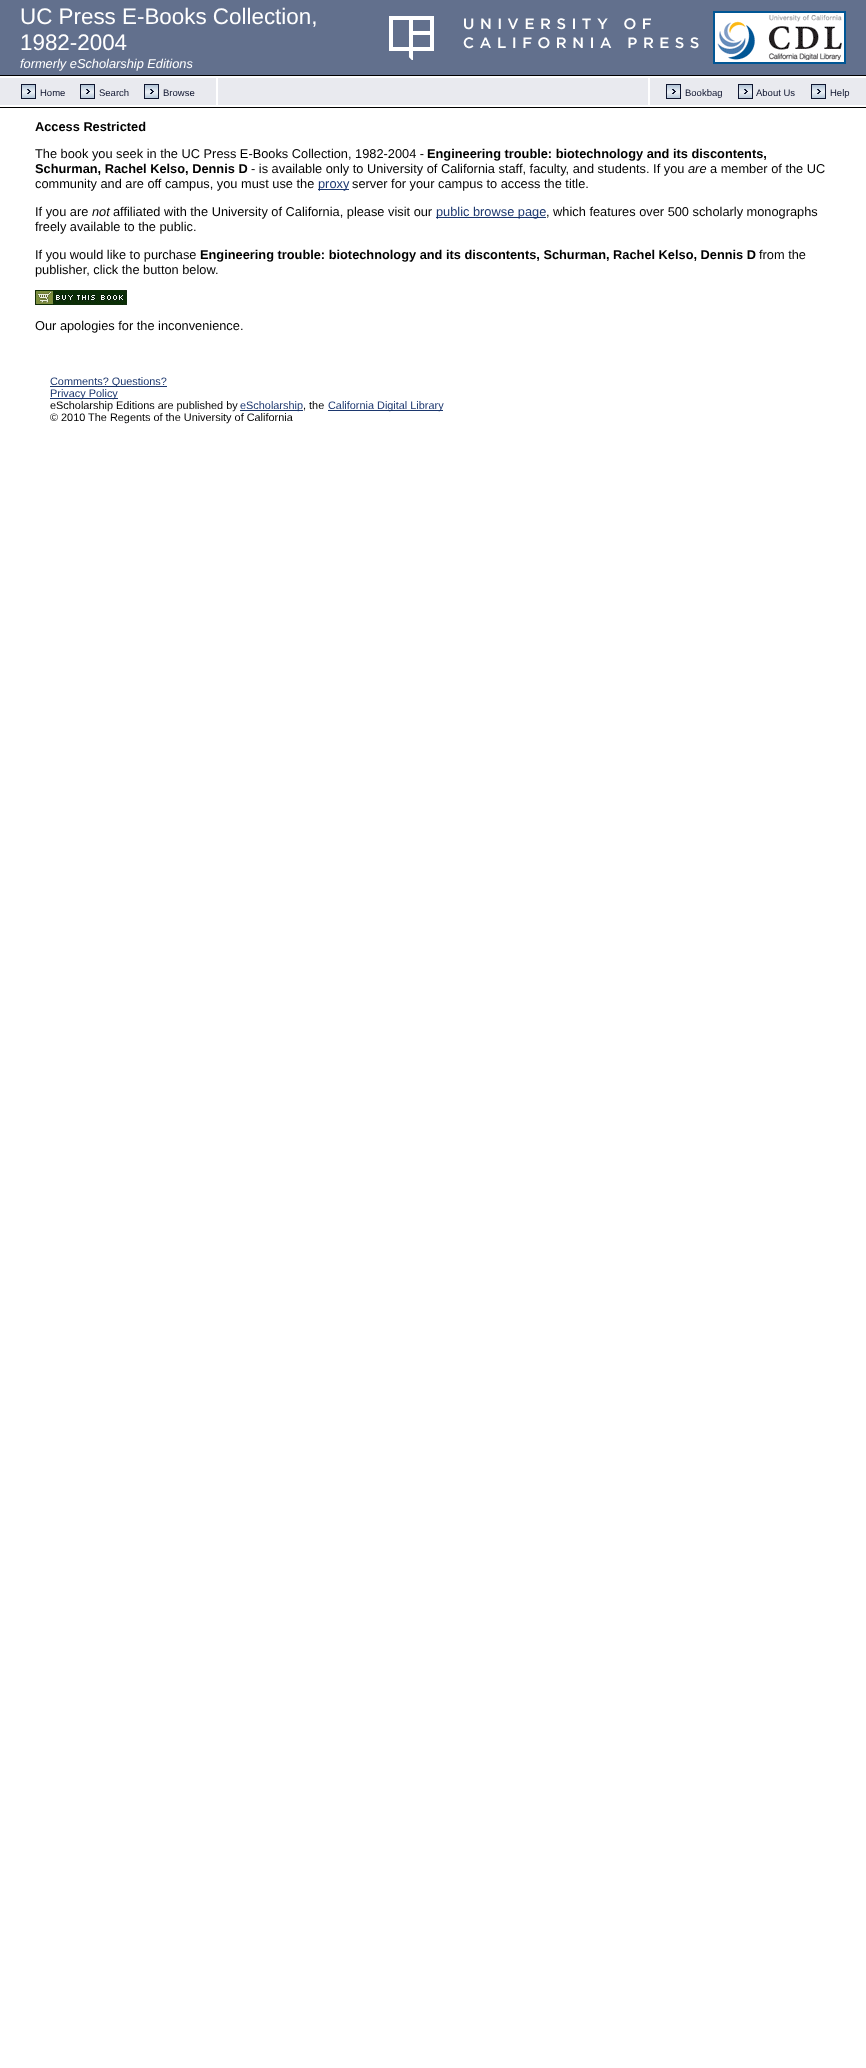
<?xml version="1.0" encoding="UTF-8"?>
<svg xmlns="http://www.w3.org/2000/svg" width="866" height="2068">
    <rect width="100%" height="100%" fill="#FFFFFF"/>
    <rect x="0" y="0" width="866" height="75" fill="#62708D"/>
    <rect x="0" y="75" width="866" height="1" fill="#000000"/>
    <text font-family="Liberation Sans" font-size="22.4" fill="#FFFFFF">
        <tspan x="20" y="24">UC Press E-Books Collection,</tspan>
        <tspan x="20" y="50">1982-2004</tspan>
    </text>
    <text x="20" y="68" font-family="Liberation Sans" font-size="12.8" font-style="italic" fill="#FFFFFF">formerly eScholarship Editions</text>
    <image x="389" y="16" width="310" height="44" href="img_01.png"/>
    <rect x="714" y="12" width="131" height="51" fill="#FFFFFF" stroke="#005695" stroke-width="2"/>
    <image x="717" y="15" width="125" height="45" href="img_02.png"/>
    <rect x="0" y="107" width="866" height="1" fill="#000000"/>
    <rect x="0" y="78" width="216" height="27" fill="#E9EAEF"/>
    <image x="21" y="84" width="15" height="15" href="img_03.png"/>
    <text x="40" y="96" font-family="Liberation Sans" font-size="9.5" fill="#0F152F">Home</text>
    <image x="80" y="84" width="15" height="15" href="img_03.png"/>
    <text x="99" y="96" font-family="Liberation Sans" font-size="9.5" fill="#0F152F">Search</text>
    <image x="144" y="84" width="15" height="15" href="img_03.png"/>
    <text x="163" y="96" font-family="Liberation Sans" font-size="9.5" fill="#0F152F">Browse</text>
    <rect x="218" y="78" width="430" height="27" fill="#E9EAEF"/>
    <rect x="650" y="78" width="216" height="27" fill="#E9EAEF"/>
    <image x="666" y="84" width="15" height="15" href="img_03.png"/>
    <text x="685" y="96" font-family="Liberation Sans" font-size="9.5" fill="#0F152F">Bookbag</text>
    <image x="738" y="84" width="15" height="15" href="img_03.png"/>
    <text x="756" y="96" font-family="Liberation Sans" font-size="9.5" fill="#0F152F">About Us</text>
    <image x="811" y="84" width="15" height="15" href="img_03.png"/>
    <text x="830" y="96" font-family="Liberation Sans" font-size="9.5" fill="#0F152F">Help</text>
    <text x="35" y="131" font-family="Liberation Sans" font-size="12.8" font-weight="700" fill="#000000">Access Restricted</text>
    <text x="35" y="158" font-family="Liberation Sans" font-size="12.8" fill="#000000">The book you seek in the UC Press E-Books Collection, 1982-2004 -</text>
    <text x="427" y="158" font-family="Liberation Sans" font-size="12.8" font-weight="700" fill="#000000">Engineering trouble: biotechnology and its discontents,</text>
    <text x="35" y="173" font-family="Liberation Sans" font-size="12.8" font-weight="700" fill="#000000">Schurman, Rachel Kelso, Dennis D</text>
    <text x="251" y="173" font-family="Liberation Sans" font-size="12.8" fill="#000000">- is available only to University of California staff, faculty, and students. If you</text>
    <text x="688" y="173" font-family="Liberation Sans" font-size="12.8" font-style="italic" fill="#000000">are</text>
    <text x="710" y="173" font-family="Liberation Sans" font-size="12.8" fill="#000000">a member of the UC</text>
    <text x="35" y="188" font-family="Liberation Sans" font-size="12.8" fill="#000000">community and are off campus, you must use the</text>
    <rect x="318" y="189" width="31" height="1" fill="#1C376E"/>
    <text x="318" y="188" font-family="Liberation Sans" font-size="12.8" fill="#1C376E">proxy</text>
    <text x="352" y="188" font-family="Liberation Sans" font-size="12.8" fill="#000000">server for your campus to access the title.</text>
    <text x="35" y="216" font-family="Liberation Sans" font-size="12.8" fill="#000000">If you are</text>
    <text x="92" y="216" font-family="Liberation Sans" font-size="12.8" font-style="italic" fill="#000000">not</text>
    <text x="113" y="216" font-family="Liberation Sans" font-size="12.8" fill="#000000">affiliated with the University of California, please visit our</text>
    <rect x="436" y="217" width="110" height="1" fill="#1C376E"/>
    <text x="436" y="216" font-family="Liberation Sans" font-size="12.8" fill="#1C376E">public browse page</text>
    <text x="546" y="216" font-family="Liberation Sans" font-size="12.8" fill="#000000">, which features over 500 scholarly monographs</text>
    <text x="35" y="231" font-family="Liberation Sans" font-size="12.8" fill="#000000">freely available to the public.</text>
    <text x="35" y="259" font-family="Liberation Sans" font-size="12.8" fill="#000000">If you would like to purchase</text>
    <text x="200" y="259" font-family="Liberation Sans" font-size="12.8" font-weight="700" fill="#000000">Engineering trouble: biotechnology and its discontents, Schurman, Rachel Kelso, Dennis D</text>
    <text x="759" y="259" font-family="Liberation Sans" font-size="12.8" fill="#000000">from the</text>
    <text x="35" y="274" font-family="Liberation Sans" font-size="12.8" fill="#000000">publisher, click the button below.</text>
    <image x="35" y="290" width="92" height="15" href="img_04.png"/>
    <text x="35" y="330" font-family="Liberation Sans" font-size="12.8" fill="#000000">Our apologies for the inconvenience.</text>
    <rect x="50" y="386" width="117" height="1" fill="#1C376E"/>
    <text x="50" y="385" font-family="Liberation Sans" font-size="10.9" fill="#1C376E">Comments? Questions?</text>
    <rect x="50" y="398" width="68" height="1" fill="#1C376E"/>
    <text x="50" y="397" font-family="Liberation Sans" font-size="10.9" fill="#1C376E">Privacy Policy</text>
    <text x="50" y="409" font-family="Liberation Sans" font-size="10.9" fill="#000000">eScholarship Editions are published by</text>
    <rect x="240" y="410" width="63" height="1" fill="#1C376E"/>
    <text x="240" y="409" font-family="Liberation Sans" font-size="10.9" fill="#1C376E">eScholarship</text>
    <text x="303" y="409" font-family="Liberation Sans" font-size="10.9" fill="#000000">, the</text>
    <rect x="328" y="410" width="115" height="1" fill="#1C376E"/>
    <text x="328" y="409" font-family="Liberation Sans" font-size="10.9" fill="#1C376E">California Digital Library</text>
    <text x="50" y="421" font-family="Liberation Sans" font-size="10.9" fill="#000000">© 2010 The Regents of the University of California</text>
</svg>
